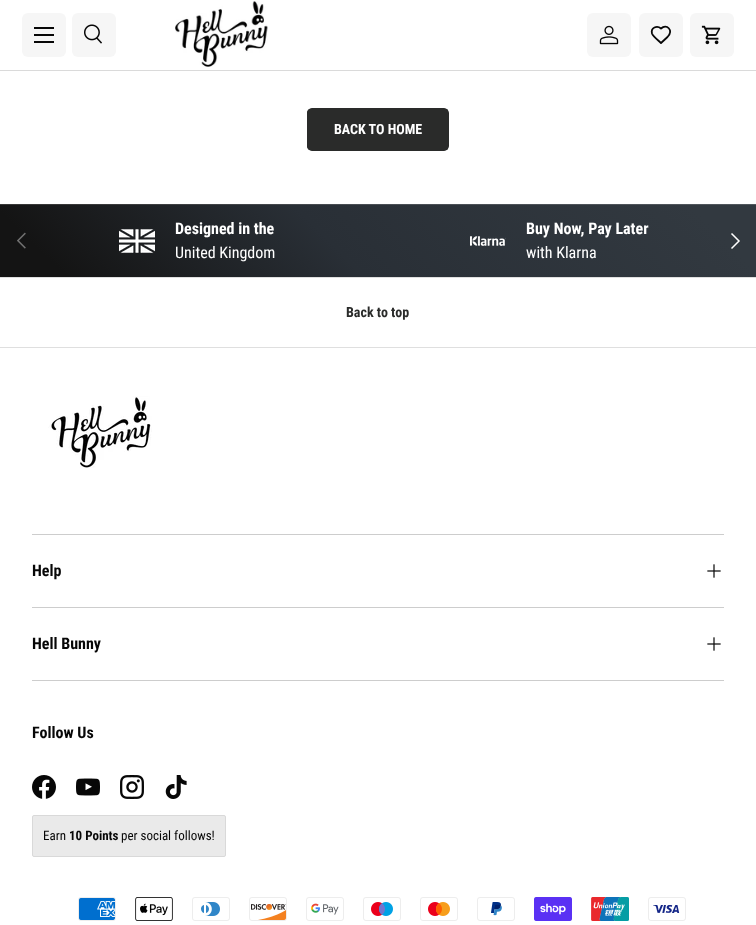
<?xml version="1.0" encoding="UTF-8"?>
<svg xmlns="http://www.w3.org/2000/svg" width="756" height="925">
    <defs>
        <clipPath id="clip1"><rect x="307" y="108" width="142" height="43" rx="5"/></clipPath>
        <linearGradient id="g1" gradientUnits="userSpaceOnUse" x1="35" y1="79" x2="441" y2="180"><stop offset="0.6" stop-color="#525352"/><stop offset="0.6" stop-color="#2A2B2A"/><stop offset="1" stop-color="#2A2B2A"/></linearGradient>
        <linearGradient id="g2" gradientUnits="userSpaceOnUse" x1="585" y1="-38" x2="171" y2="376"><stop offset="0.08" stop-color="#51575D"/><stop offset="0.56" stop-color="#494E54"/><stop offset="0.92" stop-color="#373737"/></linearGradient>
        <linearGradient id="g3" gradientUnits="userSpaceOnUse" x1="585" y1="34" x2="171" y2="448"><stop offset="0.08" stop-color="#323940"/><stop offset="0.56" stop-color="#292F36"/><stop offset="0.92" stop-color="#141414"/></linearGradient>
    </defs>
    <rect width="100%" height="100%" fill="#FFFFFF"/>
    <rect x="0" y="70" width="756" height="1" fill="#DADADA"/>
    <rect x="22" y="13" width="44" height="44" rx="6" fill="#F6F6F6"/>
    <rect x="34" y="27" width="20" height="2" fill="#070707"/>
    <rect x="34" y="41" width="20" height="2" fill="#070707"/>
    <rect x="34" y="34" width="20" height="2" fill="#070707"/>
    <rect x="72" y="13" width="44" height="44" rx="6" fill="#F6F6F6"/>
    <image x="84" y="24" width="18" height="20" href="img_01.png"/>
    <image x="175" y="1" width="93" height="66" href="img_02.png"/>
    <rect x="587" y="13" width="44" height="44" rx="6" fill="#F6F6F6"/>
    <image x="599" y="25" width="20" height="20" href="img_03.png"/>
    <rect x="639" y="13" width="44" height="44" rx="6" fill="#F6F6F6"/>
    <path d="M 667.5 37 C 674 30 666.5 23.5 661 28.5 C 657 25 650.5 27.5 652 33.5 C 653 36.5 659 41 661 43 Z" fill="none" stroke="#070707" stroke-width="1.8" stroke-linecap="round" stroke-linejoin="round"/>
    <rect x="690" y="13" width="44" height="44" rx="6" fill="#F6F6F6"/>
    <image x="701" y="25" width="20" height="20" href="img_04.png"/>
    <g clip-path="url(#clip1)">
        <rect x="307" y="109" width="141" height="41" fill="url(#g1)"/>
    </g>
    <rect x="307.5" y="108.5" width="141" height="42" rx="4.5" fill="none" stroke="#2A2B2A"/>
    <text x="334" y="134" font-family="Roboto Condensed" font-size="14" font-weight="700" fill="#FFFFFF">BACK TO HOME</text>
    <rect x="0" y="204" width="756" height="1" fill="url(#g2)"/>
    <rect x="0" y="205" width="756" height="72" fill="url(#g3)"/>
    <image x="119" y="229" width="36" height="25" href="img_05.png"/>
    <text x="175" y="234" font-family="Roboto Condensed" font-size="16" font-weight="700" fill="#FFFFFF">Designed in the</text>
    <text x="175" y="258" font-family="Roboto Condensed" font-size="16" fill="#FFFFFF">United Kingdom</text>
    <image x="470" y="236" width="36" height="10" href="img_06.png"/>
    <text x="526" y="234" font-family="Roboto Condensed" font-size="16" font-weight="700" fill="#FFFFFF">Buy Now, Pay Later</text>
    <text x="526" y="258" font-family="Roboto Condensed" font-size="16" fill="#FFFFFF">with Klarna</text>
    <image x="17" y="232" width="9" height="17" href="img_07.png"/>
    <path d="M 731.5 233.5 L 739 241 L 731.5 248.5" fill="none" stroke="#FFFFFF" stroke-width="1.5"/>
    <rect x="0" y="277" width="756" height="1" fill="#DFDFDF"/>
    <rect x="0" y="347" width="756" height="1" fill="#DFDFDF"/>
    <text x="346" y="317" font-family="Roboto Condensed" font-size="14" font-weight="700" fill="#2A2B2A">Back to top</text>
    <image x="48" y="396" width="104" height="72" href="img_08.png"/>
    <rect x="32" y="534" width="692" height="1" fill="#CDCDCD"/>
    <rect x="32" y="607" width="692" height="1" fill="#CDCDCD"/>
    <text x="32" y="576" font-family="Roboto Condensed" font-size="16" font-weight="700" fill="#070707">Help</text>
    <image x="707" y="564" width="14" height="14" href="img_09.png"/>
    <rect x="32" y="680" width="692" height="1" fill="#CDCDCD"/>
    <text x="32" y="649" font-family="Roboto Condensed" font-size="16" font-weight="700" fill="#070707">Hell Bunny</text>
    <image x="707" y="637" width="14" height="14" href="img_09.png"/>
    <text x="32" y="738" font-family="Roboto Condensed" font-size="16" font-weight="700" fill="#070707">Follow Us</text>
    <image x="32" y="775" width="24" height="24" href="img_10.png"/>
    <image x="76" y="778" width="24" height="18" href="img_11.png"/>
    <image x="120" y="775" width="24" height="24" href="img_12.png"/>
    <image x="165" y="775" width="22" height="24" href="img_13.png"/>
    <rect x="32.5" y="815.5" width="193" height="41" rx="1.5" fill="#EAEAEA" stroke="#D9D9D9"/>
    <text x="43" y="840" font-family="Roboto Condensed" font-size="13" fill="#070707">Earn</text>
    <text x="69" y="840" font-family="Roboto Condensed" font-size="13" font-weight="700" fill="#070707">10 Points</text>
    <text x="121" y="840" font-family="Roboto Condensed" font-size="13" fill="#070707">per social follows!</text>
    <image x="78" y="897" width="38" height="24" href="img_14.png"/>
    <image x="135" y="897" width="38" height="24" href="img_15.png"/>
    <image x="192" y="897" width="38" height="24" href="img_16.png"/>
    <image x="249" y="897" width="38" height="24" href="img_17.png"/>
    <image x="306" y="897" width="38" height="24" href="img_18.png"/>
    <image x="363" y="897" width="38" height="24" href="img_19.png"/>
    <image x="420" y="897" width="38" height="24" href="img_20.png"/>
    <image x="477" y="897" width="38" height="24" href="img_21.png"/>
    <image x="534" y="897" width="38" height="24" href="img_22.png"/>
    <image x="591" y="897" width="38" height="24" href="img_23.png"/>
    <image x="648" y="897" width="38" height="24" href="img_24.png"/>
</svg>
